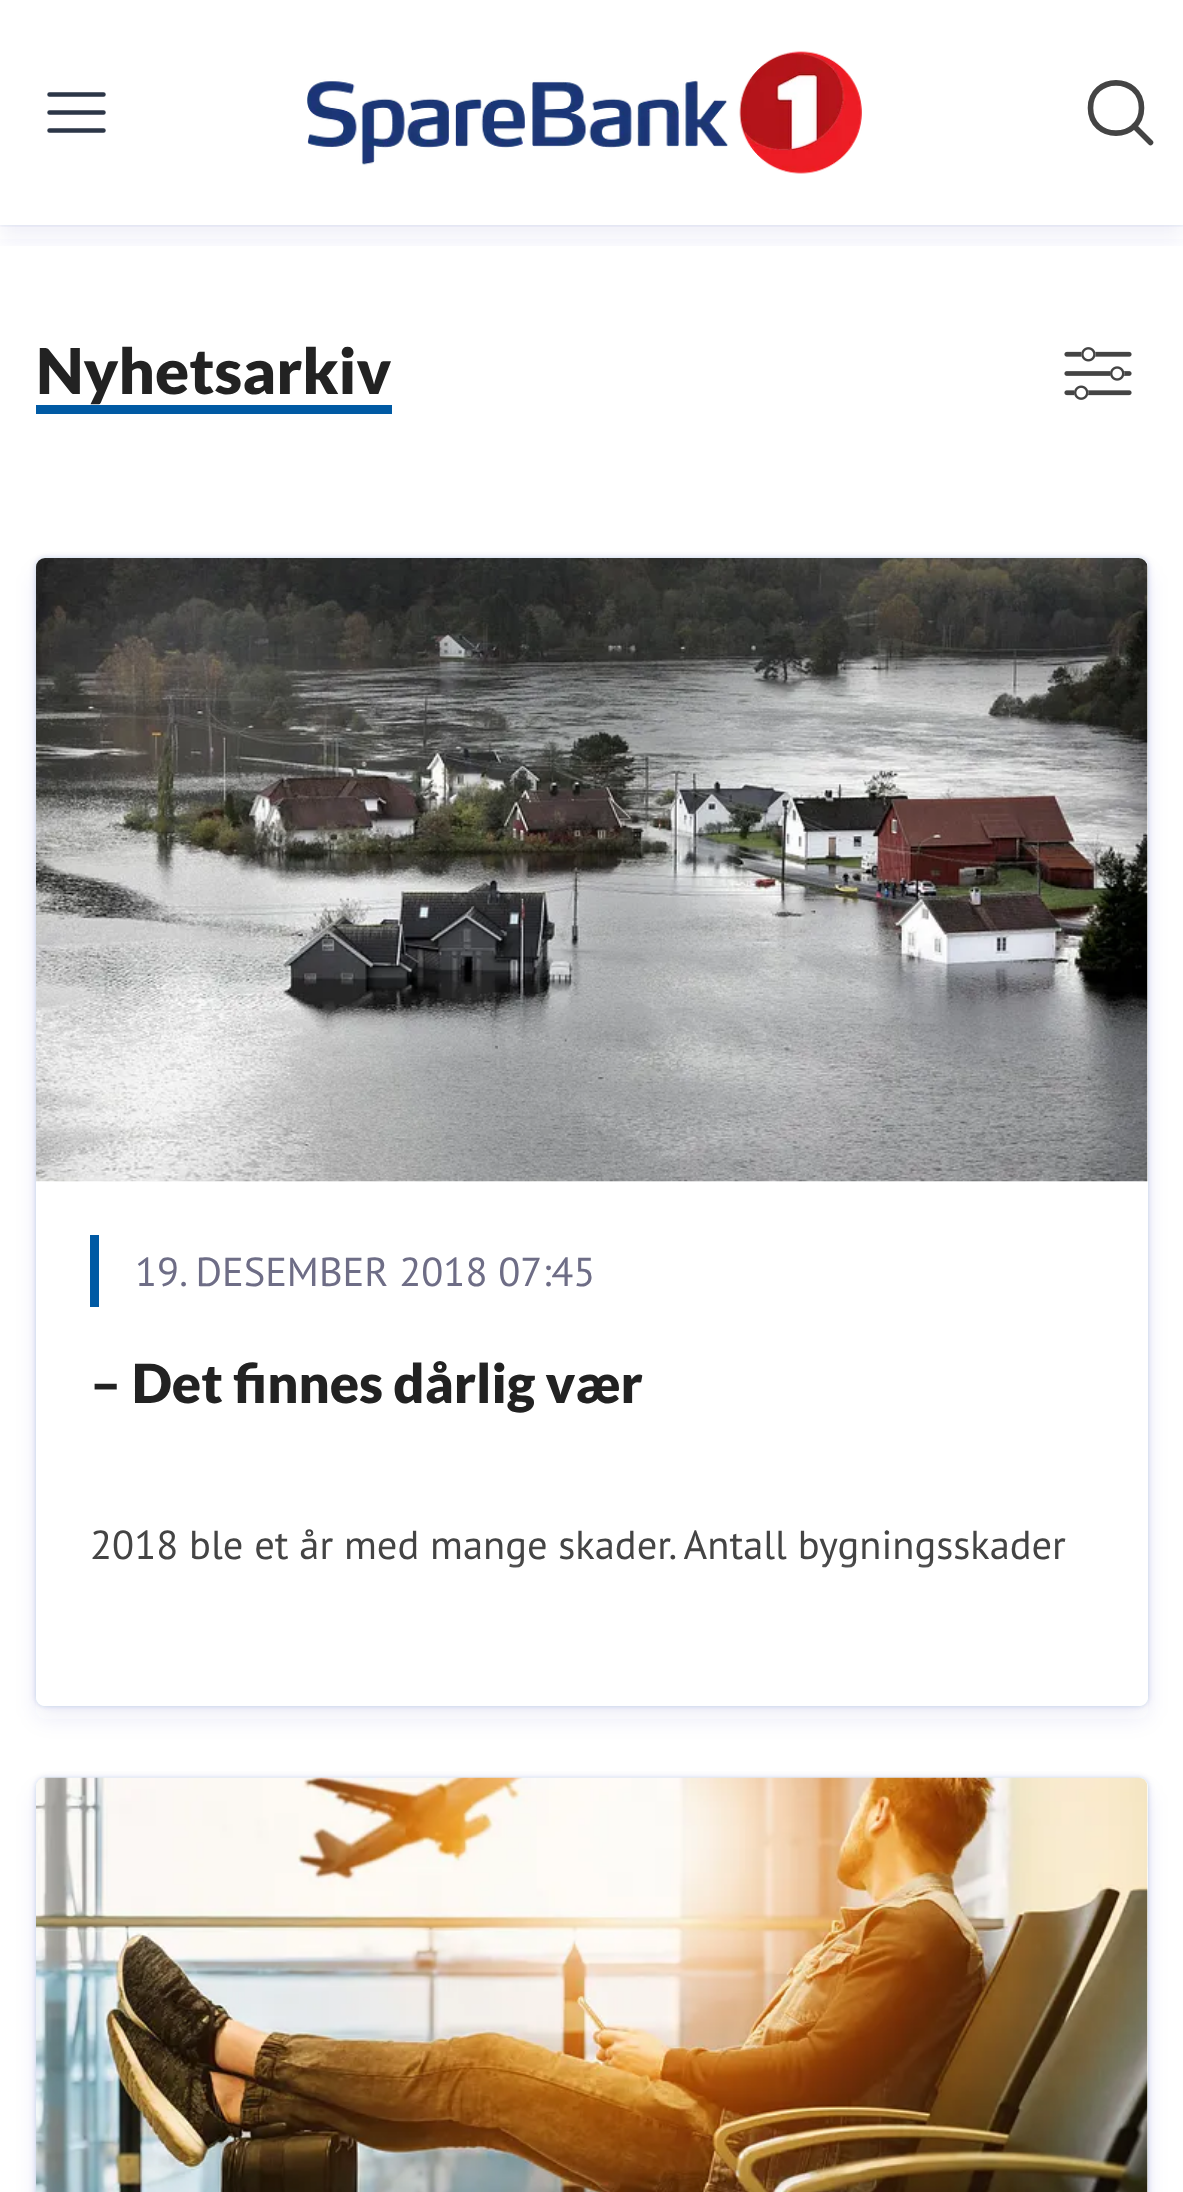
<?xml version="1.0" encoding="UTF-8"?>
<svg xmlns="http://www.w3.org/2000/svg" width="1183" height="2192">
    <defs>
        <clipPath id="clip1"><rect x="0" y="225" width="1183" height="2"/></clipPath>
        <filter id="blur1" x="-50%" y="-200%" width="200%" height="500%"><feGaussianBlur stdDeviation="2"/></filter>
        <clipPath id="clip2"><rect x="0" y="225" width="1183" height="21"/></clipPath>
        <filter id="blur2" x="-50%" y="-200%" width="200%" height="500%"><feGaussianBlur stdDeviation="11"/></filter>
        <filter id="blur3" x="-50%" y="-200%" width="200%" height="500%"><feGaussianBlur stdDeviation="3.5"/></filter>
        <linearGradient id="g1" gradientUnits="userSpaceOnUse" x1="592" y1="1562" x2="592" y2="1706"><stop offset="0" stop-color="#FFFFFF" stop-opacity="0"/><stop offset="0.25" stop-color="#FFFFFF" stop-opacity="0.7"/><stop offset="0.5" stop-color="#FFFFFF"/></linearGradient>
    </defs>
    <rect width="100%" height="100%" fill="#FFFFFF"/>
    <g clip-path="url(#clip1)">
        <rect x="0" y="0" width="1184" height="225" fill="#3149A4" fill-opacity="0.14" filter="url(#blur1)"/>
    </g>
    <g clip-path="url(#clip2)">
        <rect x="0" y="14" width="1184" height="225" fill="#3149A4" fill-opacity="0.08" filter="url(#blur2)"/>
    </g>
    <path d="M 49.5 112.5 H 103.5 M 49.5 94.5 H 103.5 M 49.5 130.5 H 103.5" fill="none" stroke="#2C3647" stroke-width="4.5" stroke-linecap="round" stroke-linejoin="round"/>
    <image x="307" y="51" width="555" height="123" href="img_01.png"/>
    <path d="M 1141.5 108 C 1141.5 141.5 1090.5 141.5 1090.5 108 C 1090.5 74.5 1141.5 74.5 1141.5 108 Z M 1150.5 142.5 L 1134 126" fill="none" stroke="#444444" stroke-width="5.6" stroke-linecap="round"/>
    <rect x="36" y="405" width="356" height="9" fill="#005AA4"/>
    <text x="36" y="394" font-family="Lato" font-size="63" font-weight="900" fill="#222222">Nyhetsarkiv</text>
    <image x="1064" y="347" width="68" height="53" href="img_02.png"/>
    <rect x="36" y="558" width="1112" height="1148" rx="9" fill="#3149A4" fill-opacity="0.14" filter="url(#blur1)"/>
    <rect x="36" y="558" width="1112" height="1148" rx="9" fill="#3149A4" fill-opacity="0.1" filter="url(#blur3)"/>
    <rect x="36" y="572" width="1112" height="1147" rx="9" fill="#3149A4" fill-opacity="0.08" filter="url(#blur2)"/>
    <rect x="36" y="558" width="1112" height="1148" rx="9" fill="#FFFFFF"/>
    <path d="M 45 558 H 1139 C 1144 558 1148 562 1148 567 V 1181 H 36 V 567 C 36 562 40 558 45 558 Z" fill="#FFFFFF"/>
    <image x="36" y="558" width="1112" height="624" href="img_03.png"/>
    <image x="36" y="558" width="1112" height="624" href="img_04.png"/>
    <rect x="90" y="1235" width="9" height="72" fill="#005AA4"/>
    <text x="135" y="1286" font-family="PT Sans" font-size="40.5" fill="#6E6D86">19. DESEMBER 2018 07:45</text>
    <text x="90" y="1403" font-family="Lato" font-size="54" font-weight="900" fill="#222222">– Det finnes dårlig vær</text>
    <text x="90" y="1559" font-family="PT Sans" font-size="40.5" fill="#444444">2018 ble et år med mange skader. Antall bygningsskader</text>
    <path d="M 36 1562 H 1148 V 1697 C 1148 1702 1144 1706 1139 1706 H 45 C 40 1706 36 1702 36 1697 Z" fill="url(#g1)"/>
    <rect x="36" y="1778" width="1112" height="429" rx="9" fill="#3149A4" fill-opacity="0.14" filter="url(#blur1)"/>
    <rect x="36" y="1778" width="1112" height="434" rx="9" fill="#3149A4" fill-opacity="0.1" filter="url(#blur3)"/>
    <rect x="36" y="1791" width="1112" height="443" rx="9" fill="#3149A4" fill-opacity="0.08" filter="url(#blur2)"/>
    <path d="M 45 1778 H 1139 C 1144 1778 1148 1782 1148 1787 V 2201 H 36 V 1787 C 36 1782 40 1778 45 1778 Z" fill="#FFFFFF"/>
    <image x="36" y="1778" width="1112" height="414" href="img_05.png"/>
    <image x="36" y="1777" width="1112" height="415" href="img_06.png"/>
</svg>
